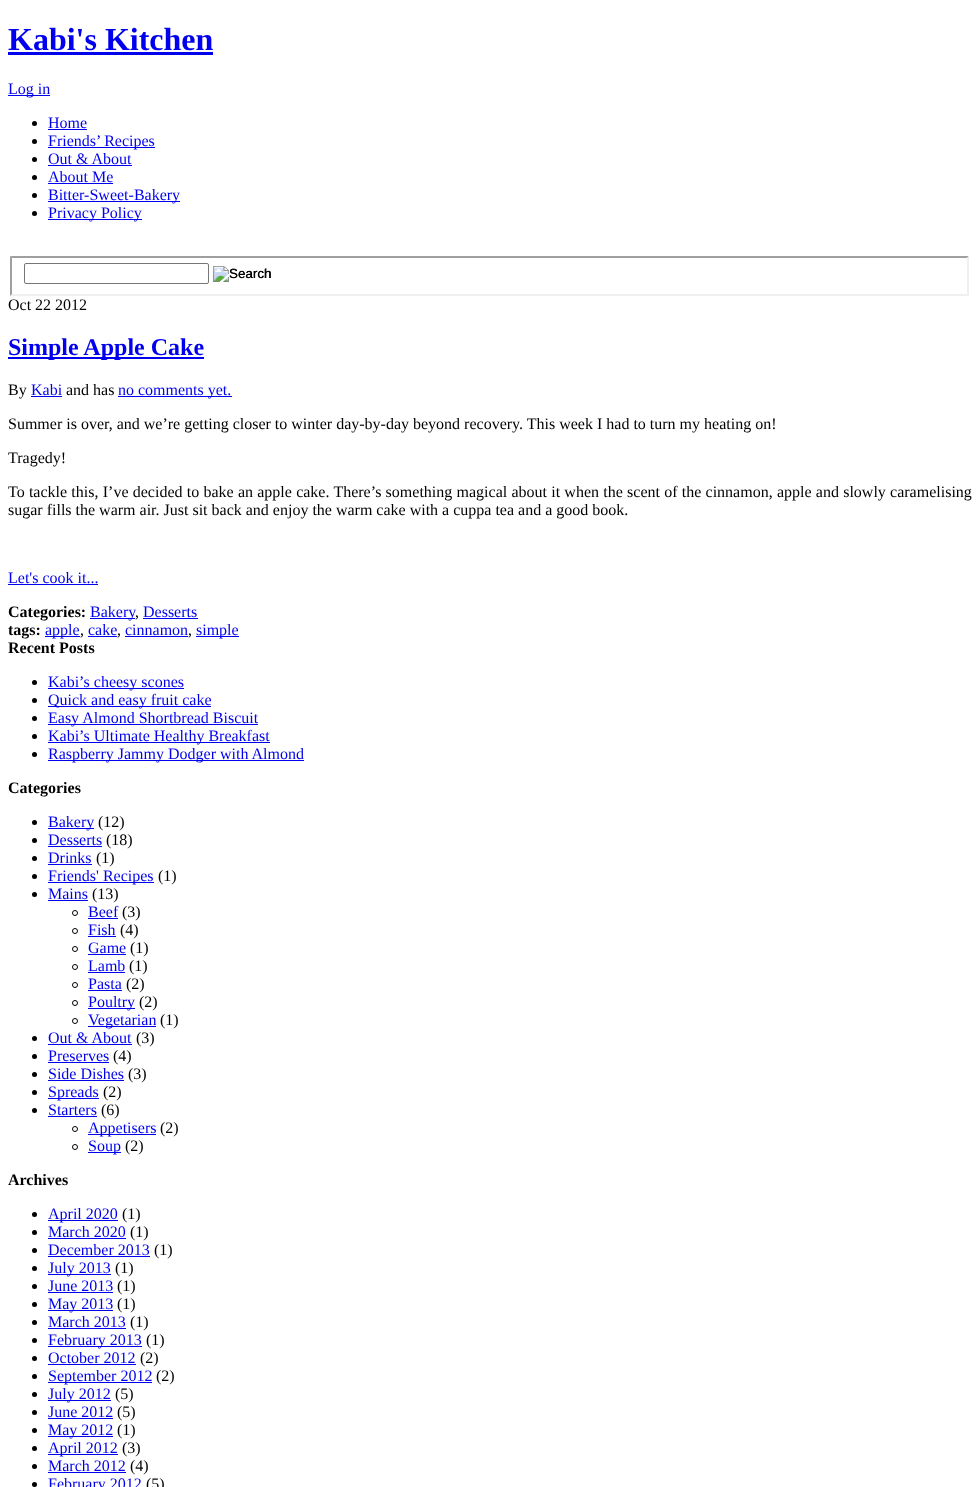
<?xml version="1.0" encoding="UTF-8"?>
<svg xmlns="http://www.w3.org/2000/svg" width="979" height="1487">
    <rect width="100%" height="100%" fill="#FFFFFF"/>
    <text x="8" y="50" font-family="Liberation Serif" font-size="32" font-weight="700" fill="#0000EE">Kabi's Kitchen</text>
    <rect x="8" y="52" width="205" height="3" fill="#0000EE"/>
    <rect x="8" y="95" width="42" height="1" fill="#0000EE"/>
    <text x="8" y="94" font-family="Liberation Serif" font-size="16" fill="#0000EE">Log in</text>
    <circle cx="34.5" cy="123.5" r="2.5" fill="#000000"/>
    <text x="48" y="128" font-family="Liberation Serif" font-size="16" fill="#0000EE">Home</text>
    <rect x="48" y="129" width="39" height="1" fill="#0000EE"/>
    <circle cx="34.5" cy="141.5" r="2.5" fill="#000000"/>
    <rect x="48" y="147" width="107" height="1" fill="#0000EE"/>
    <text x="48" y="146" font-family="Liberation Serif" font-size="16" fill="#0000EE">Friends’ Recipes</text>
    <circle cx="34.5" cy="159.5" r="2.5" fill="#000000"/>
    <text x="48" y="164" font-family="Liberation Serif" font-size="16" fill="#0000EE">Out &amp; About</text>
    <rect x="48" y="165" width="84" height="1" fill="#0000EE"/>
    <circle cx="34.5" cy="177.5" r="2.5" fill="#000000"/>
    <text x="48" y="182" font-family="Liberation Serif" font-size="16" fill="#0000EE">About Me</text>
    <rect x="48" y="183" width="65" height="1" fill="#0000EE"/>
    <circle cx="34.5" cy="195.5" r="2.5" fill="#000000"/>
    <rect x="48" y="201" width="132" height="1" fill="#0000EE"/>
    <text x="48" y="200" font-family="Liberation Serif" font-size="16" fill="#0000EE">Bitter-Sweet-Bakery</text>
    <circle cx="34.5" cy="213.5" r="2.5" fill="#000000"/>
    <rect x="48" y="219" width="94" height="1" fill="#0000EE"/>
    <text x="48" y="218" font-family="Liberation Serif" font-size="16" fill="#0000EE">Privacy Policy</text>
    <path d="M 10 256 H 969 L 967 258 H 12 Z" fill="#9F9F9F"/>
    <path d="M 969 256 V 296 L 967 294 V 258 Z" fill="#EFEFEF"/>
    <path d="M 969 296 H 10 L 12 294 H 967 Z" fill="#EFEFEF"/>
    <path d="M 10 296 V 256 L 12 258 V 294 Z" fill="#9F9F9F"/>
    <rect x="24.5" y="263.5" width="184" height="20" rx="1.5" fill="none" stroke="#767676"/>
    <image x="213" y="266" width="58" height="16" href="img_01.png"/>
    <text x="229" y="278" font-family="Liberation Sans" font-size="13.5" fill="#000000">Search</text>
    <text x="8" y="310" font-family="Liberation Serif" font-size="16" fill="#000000">Oct 22 2012</text>
    <rect x="8" y="357" width="196" height="2" fill="#0000EE"/>
    <text x="8" y="355" font-family="Liberation Serif" font-size="24" font-weight="700" fill="#0000EE">Simple Apple Cake</text>
    <text x="8" y="395" font-family="Liberation Serif" font-size="16" fill="#000000">By</text>
    <text x="31" y="395" font-family="Liberation Serif" font-size="16" fill="#0000EE">Kabi</text>
    <rect x="31" y="396" width="31" height="1" fill="#0000EE"/>
    <text x="66" y="395" font-family="Liberation Serif" font-size="16" fill="#000000">and has</text>
    <rect x="118" y="396" width="114" height="1" fill="#0000EE"/>
    <text x="118" y="395" font-family="Liberation Serif" font-size="16" fill="#0000EE">no comments yet.</text>
    <text x="8" y="429" font-family="Liberation Serif" font-size="16" fill="#000000">Summer is over, and we’re getting closer to winter day-by-day beyond recovery. This week I had to turn my heating on!</text>
    <text x="8" y="463" font-family="Liberation Serif" font-size="16" fill="#000000">Tragedy!</text>
    <text font-family="Liberation Serif" font-size="16" fill="#000000">
        <tspan x="8" y="497" word-spacing="0.25">To tackle this, I’ve decided to bake an apple cake. There’s something magical about it when the scent of the cinnamon, apple and slowly caramelising</tspan>
        <tspan x="8" y="515">sugar fills the warm air. Just sit back and enjoy the warm cake with a cuppa tea and a good book.</tspan>
    </text>
    <text x="8" y="583" font-family="Liberation Serif" font-size="16" fill="#0000EE">Let's cook it...</text>
    <rect x="8" y="584" width="90" height="1" fill="#0000EE"/>
    <text x="8" y="617" font-family="Liberation Serif" font-size="16" font-weight="700" fill="#000000">Categories:</text>
    <rect x="90" y="618" width="45" height="1" fill="#0000EE"/>
    <text x="90" y="617" font-family="Liberation Serif" font-size="16" fill="#0000EE">Bakery</text>
    <text x="143" y="617" font-family="Liberation Serif" font-size="16" fill="#0000EE">Desserts</text>
    <rect x="143" y="618" width="55" height="1" fill="#0000EE"/>
    <text x="135" y="617" font-family="Liberation Serif" font-size="16" fill="#000000">,</text>
    <text x="8" y="635" font-family="Liberation Serif" font-size="16" font-weight="700" fill="#000000">tags:</text>
    <rect x="45" y="636" width="35" height="1" fill="#0000EE"/>
    <text x="45" y="635" font-family="Liberation Serif" font-size="16" fill="#0000EE">apple</text>
    <text x="80" y="635" font-family="Liberation Serif" font-size="16" fill="#000000">,</text>
    <text x="88" y="635" font-family="Liberation Serif" font-size="16" fill="#0000EE">cake</text>
    <rect x="88" y="636" width="29" height="1" fill="#0000EE"/>
    <text x="117" y="635" font-family="Liberation Serif" font-size="16" fill="#000000">,</text>
    <text x="125" y="635" font-family="Liberation Serif" font-size="16" fill="#0000EE">cinnamon</text>
    <rect x="125" y="636" width="63" height="1" fill="#0000EE"/>
    <text x="188" y="635" font-family="Liberation Serif" font-size="16" fill="#000000">,</text>
    <rect x="196" y="636" width="43" height="1" fill="#0000EE"/>
    <text x="196" y="635" font-family="Liberation Serif" font-size="16" fill="#0000EE">simple</text>
    <text x="8" y="653" font-family="Liberation Serif" font-size="16" font-weight="700" fill="#000000">Recent Posts</text>
    <circle cx="34.5" cy="682.5" r="2.5" fill="#000000"/>
    <rect x="48" y="688" width="136" height="1" fill="#0000EE"/>
    <text x="48" y="687" font-family="Liberation Serif" font-size="16" fill="#0000EE">Kabi’s cheesy scones</text>
    <circle cx="34.5" cy="700.5" r="2.5" fill="#000000"/>
    <rect x="48" y="706" width="163" height="1" fill="#0000EE"/>
    <text x="48" y="705" font-family="Liberation Serif" font-size="16" fill="#0000EE">Quick and easy fruit cake</text>
    <circle cx="34.5" cy="718.5" r="2.5" fill="#000000"/>
    <rect x="48" y="724" width="210" height="1" fill="#0000EE"/>
    <text x="48" y="723" font-family="Liberation Serif" font-size="16" fill="#0000EE">Easy Almond Shortbread Biscuit</text>
    <circle cx="34.5" cy="736.5" r="2.5" fill="#000000"/>
    <rect x="48" y="742" width="222" height="1" fill="#0000EE"/>
    <text x="48" y="741" font-family="Liberation Serif" font-size="16" fill="#0000EE">Kabi’s Ultimate Healthy Breakfast</text>
    <circle cx="34.5" cy="754.5" r="2.5" fill="#000000"/>
    <rect x="48" y="760" width="256" height="1" fill="#0000EE"/>
    <text x="48" y="759" font-family="Liberation Serif" font-size="16" fill="#0000EE">Raspberry Jammy Dodger with Almond</text>
    <text x="8" y="793" font-family="Liberation Serif" font-size="16" font-weight="700" fill="#000000">Categories</text>
    <circle cx="34.5" cy="822.5" r="2.5" fill="#000000"/>
    <rect x="48" y="828" width="46" height="1" fill="#0000EE"/>
    <text x="48" y="827" font-family="Liberation Serif" font-size="16" fill="#0000EE">Bakery</text>
    <text x="98" y="827" font-family="Liberation Serif" font-size="16" fill="#000000">(12)</text>
    <circle cx="34.5" cy="840.5" r="2.5" fill="#000000"/>
    <text x="48" y="845" font-family="Liberation Serif" font-size="16" fill="#0000EE">Desserts</text>
    <rect x="48" y="846" width="54" height="1" fill="#0000EE"/>
    <text x="106" y="845" font-family="Liberation Serif" font-size="16" fill="#000000">(18)</text>
    <circle cx="34.5" cy="858.5" r="2.5" fill="#000000"/>
    <text x="48" y="863" font-family="Liberation Serif" font-size="16" fill="#0000EE">Drinks</text>
    <rect x="48" y="864" width="44" height="1" fill="#0000EE"/>
    <text x="96" y="863" font-family="Liberation Serif" font-size="16" fill="#000000">(1)</text>
    <circle cx="34.5" cy="876.5" r="2.5" fill="#000000"/>
    <rect x="48" y="882" width="106" height="1" fill="#0000EE"/>
    <text x="48" y="881" font-family="Liberation Serif" font-size="16" fill="#0000EE">Friends' Recipes</text>
    <text x="158" y="881" font-family="Liberation Serif" font-size="16" fill="#000000">(1)</text>
    <circle cx="34.5" cy="894.5" r="2.5" fill="#000000"/>
    <text x="48" y="899" font-family="Liberation Serif" font-size="16" fill="#0000EE">Mains</text>
    <rect x="48" y="900" width="40" height="1" fill="#0000EE"/>
    <text x="92" y="899" font-family="Liberation Serif" font-size="16" fill="#000000">(13)</text>
    <circle cx="75" cy="913" r="2.5" fill="none" stroke="#000000"/>
    <text x="88" y="917" font-family="Liberation Serif" font-size="16" fill="#0000EE">Beef</text>
    <rect x="88" y="918" width="30" height="1" fill="#0000EE"/>
    <text x="122" y="917" font-family="Liberation Serif" font-size="16" fill="#000000">(3)</text>
    <circle cx="75" cy="931" r="2.5" fill="none" stroke="#000000"/>
    <text x="88" y="935" font-family="Liberation Serif" font-size="16" fill="#0000EE">Fish</text>
    <rect x="88" y="936" width="28" height="1" fill="#0000EE"/>
    <text x="120" y="935" font-family="Liberation Serif" font-size="16" fill="#000000">(4)</text>
    <circle cx="75" cy="949" r="2.5" fill="none" stroke="#000000"/>
    <text x="88" y="953" font-family="Liberation Serif" font-size="16" fill="#0000EE">Game</text>
    <rect x="88" y="954" width="38" height="1" fill="#0000EE"/>
    <text x="130" y="953" font-family="Liberation Serif" font-size="16" fill="#000000">(1)</text>
    <circle cx="75" cy="967" r="2.5" fill="none" stroke="#000000"/>
    <text x="88" y="971" font-family="Liberation Serif" font-size="16" fill="#0000EE">Lamb</text>
    <rect x="88" y="972" width="37" height="1" fill="#0000EE"/>
    <text x="129" y="971" font-family="Liberation Serif" font-size="16" fill="#000000">(1)</text>
    <circle cx="75" cy="985" r="2.5" fill="none" stroke="#000000"/>
    <text x="88" y="989" font-family="Liberation Serif" font-size="16" fill="#0000EE">Pasta</text>
    <rect x="88" y="990" width="34" height="1" fill="#0000EE"/>
    <text x="126" y="989" font-family="Liberation Serif" font-size="16" fill="#000000">(2)</text>
    <circle cx="75" cy="1003" r="2.5" fill="none" stroke="#000000"/>
    <rect x="88" y="1008" width="47" height="1" fill="#0000EE"/>
    <text x="88" y="1007" font-family="Liberation Serif" font-size="16" fill="#0000EE">Poultry</text>
    <text x="139" y="1007" font-family="Liberation Serif" font-size="16" fill="#000000">(2)</text>
    <circle cx="75" cy="1021" r="2.5" fill="none" stroke="#000000"/>
    <rect x="88" y="1026" width="68" height="1" fill="#0000EE"/>
    <text x="88" y="1025" font-family="Liberation Serif" font-size="16" fill="#0000EE">Vegetarian</text>
    <text x="160" y="1025" font-family="Liberation Serif" font-size="16" fill="#000000">(1)</text>
    <circle cx="34.5" cy="1038.5" r="2.5" fill="#000000"/>
    <text x="48" y="1043" font-family="Liberation Serif" font-size="16" fill="#0000EE">Out &amp; About</text>
    <rect x="48" y="1044" width="84" height="1" fill="#0000EE"/>
    <text x="136" y="1043" font-family="Liberation Serif" font-size="16" fill="#000000">(3)</text>
    <circle cx="34.5" cy="1056.5" r="2.5" fill="#000000"/>
    <text x="48" y="1061" font-family="Liberation Serif" font-size="16" fill="#0000EE">Preserves</text>
    <rect x="48" y="1062" width="61" height="1" fill="#0000EE"/>
    <text x="113" y="1061" font-family="Liberation Serif" font-size="16" fill="#000000">(4)</text>
    <circle cx="34.5" cy="1074.5" r="2.5" fill="#000000"/>
    <text x="48" y="1079" font-family="Liberation Serif" font-size="16" fill="#0000EE">Side Dishes</text>
    <rect x="48" y="1080" width="76" height="1" fill="#0000EE"/>
    <text x="128" y="1079" font-family="Liberation Serif" font-size="16" fill="#000000">(3)</text>
    <circle cx="34.5" cy="1092.5" r="2.5" fill="#000000"/>
    <rect x="48" y="1098" width="51" height="1" fill="#0000EE"/>
    <text x="48" y="1097" font-family="Liberation Serif" font-size="16" fill="#0000EE">Spreads</text>
    <text x="103" y="1097" font-family="Liberation Serif" font-size="16" fill="#000000">(2)</text>
    <circle cx="34.5" cy="1110.5" r="2.5" fill="#000000"/>
    <text x="48" y="1115" font-family="Liberation Serif" font-size="16" fill="#0000EE">Starters</text>
    <rect x="48" y="1116" width="49" height="1" fill="#0000EE"/>
    <text x="101" y="1115" font-family="Liberation Serif" font-size="16" fill="#000000">(6)</text>
    <circle cx="75" cy="1129" r="2.5" fill="none" stroke="#000000"/>
    <rect x="88" y="1134" width="68" height="1" fill="#0000EE"/>
    <text x="88" y="1133" font-family="Liberation Serif" font-size="16" fill="#0000EE">Appetisers</text>
    <text x="160" y="1133" font-family="Liberation Serif" font-size="16" fill="#000000">(2)</text>
    <circle cx="75" cy="1147" r="2.5" fill="none" stroke="#000000"/>
    <rect x="88" y="1152" width="33" height="1" fill="#0000EE"/>
    <text x="88" y="1151" font-family="Liberation Serif" font-size="16" fill="#0000EE">Soup</text>
    <text x="125" y="1151" font-family="Liberation Serif" font-size="16" fill="#000000">(2)</text>
    <text x="8" y="1185" font-family="Liberation Serif" font-size="16" font-weight="700" fill="#000000">Archives</text>
    <circle cx="34.5" cy="1214.5" r="2.5" fill="#000000"/>
    <rect x="48" y="1220" width="70" height="1" fill="#0000EE"/>
    <text x="48" y="1219" font-family="Liberation Serif" font-size="16" fill="#0000EE">April 2020</text>
    <text x="122" y="1219" font-family="Liberation Serif" font-size="16" fill="#000000">(1)</text>
    <circle cx="34.5" cy="1232.5" r="2.5" fill="#000000"/>
    <text x="48" y="1237" font-family="Liberation Serif" font-size="16" fill="#0000EE">March 2020</text>
    <rect x="48" y="1238" width="78" height="1" fill="#0000EE"/>
    <text x="130" y="1237" font-family="Liberation Serif" font-size="16" fill="#000000">(1)</text>
    <circle cx="34.5" cy="1250.5" r="2.5" fill="#000000"/>
    <text x="48" y="1255" font-family="Liberation Serif" font-size="16" fill="#0000EE">December 2013</text>
    <rect x="48" y="1256" width="102" height="1" fill="#0000EE"/>
    <text x="154" y="1255" font-family="Liberation Serif" font-size="16" fill="#000000">(1)</text>
    <circle cx="34.5" cy="1268.5" r="2.5" fill="#000000"/>
    <rect x="48" y="1274" width="63" height="1" fill="#0000EE"/>
    <text x="48" y="1273" font-family="Liberation Serif" font-size="16" fill="#0000EE">July 2013</text>
    <text x="115" y="1273" font-family="Liberation Serif" font-size="16" fill="#000000">(1)</text>
    <circle cx="34.5" cy="1286.5" r="2.5" fill="#000000"/>
    <text x="48" y="1291" font-family="Liberation Serif" font-size="16" fill="#0000EE">June 2013</text>
    <rect x="48" y="1292" width="65" height="1" fill="#0000EE"/>
    <text x="117" y="1291" font-family="Liberation Serif" font-size="16" fill="#000000">(1)</text>
    <circle cx="34.5" cy="1304.5" r="2.5" fill="#000000"/>
    <rect x="48" y="1310" width="65" height="1" fill="#0000EE"/>
    <text x="48" y="1309" font-family="Liberation Serif" font-size="16" fill="#0000EE">May 2013</text>
    <text x="117" y="1309" font-family="Liberation Serif" font-size="16" fill="#000000">(1)</text>
    <circle cx="34.5" cy="1322.5" r="2.5" fill="#000000"/>
    <text x="48" y="1327" font-family="Liberation Serif" font-size="16" fill="#0000EE">March 2013</text>
    <rect x="48" y="1328" width="78" height="1" fill="#0000EE"/>
    <text x="130" y="1327" font-family="Liberation Serif" font-size="16" fill="#000000">(1)</text>
    <circle cx="34.5" cy="1340.5" r="2.5" fill="#000000"/>
    <rect x="48" y="1346" width="94" height="1" fill="#0000EE"/>
    <text x="48" y="1345" font-family="Liberation Serif" font-size="16" fill="#0000EE">February 2013</text>
    <text x="146" y="1345" font-family="Liberation Serif" font-size="16" fill="#000000">(1)</text>
    <circle cx="34.5" cy="1358.5" r="2.5" fill="#000000"/>
    <text x="48" y="1363" font-family="Liberation Serif" font-size="16" fill="#0000EE">October 2012</text>
    <rect x="48" y="1364" width="88" height="1" fill="#0000EE"/>
    <text x="140" y="1363" font-family="Liberation Serif" font-size="16" fill="#000000">(2)</text>
    <circle cx="34.5" cy="1376.5" r="2.5" fill="#000000"/>
    <rect x="48" y="1382" width="104" height="1" fill="#0000EE"/>
    <text x="48" y="1381" font-family="Liberation Serif" font-size="16" fill="#0000EE">September 2012</text>
    <text x="156" y="1381" font-family="Liberation Serif" font-size="16" fill="#000000">(2)</text>
    <circle cx="34.5" cy="1394.5" r="2.5" fill="#000000"/>
    <rect x="48" y="1400" width="63" height="1" fill="#0000EE"/>
    <text x="48" y="1399" font-family="Liberation Serif" font-size="16" fill="#0000EE">July 2012</text>
    <text x="115" y="1399" font-family="Liberation Serif" font-size="16" fill="#000000">(5)</text>
    <circle cx="34.5" cy="1412.5" r="2.5" fill="#000000"/>
    <text x="48" y="1417" font-family="Liberation Serif" font-size="16" fill="#0000EE">June 2012</text>
    <rect x="48" y="1418" width="65" height="1" fill="#0000EE"/>
    <text x="117" y="1417" font-family="Liberation Serif" font-size="16" fill="#000000">(5)</text>
    <circle cx="34.5" cy="1430.5" r="2.5" fill="#000000"/>
    <rect x="48" y="1436" width="65" height="1" fill="#0000EE"/>
    <text x="48" y="1435" font-family="Liberation Serif" font-size="16" fill="#0000EE">May 2012</text>
    <text x="117" y="1435" font-family="Liberation Serif" font-size="16" fill="#000000">(1)</text>
    <circle cx="34.5" cy="1448.5" r="2.5" fill="#000000"/>
    <rect x="48" y="1454" width="70" height="1" fill="#0000EE"/>
    <text x="48" y="1453" font-family="Liberation Serif" font-size="16" fill="#0000EE">April 2012</text>
    <text x="122" y="1453" font-family="Liberation Serif" font-size="16" fill="#000000">(3)</text>
    <circle cx="34.5" cy="1466.5" r="2.5" fill="#000000"/>
    <text x="48" y="1471" font-family="Liberation Serif" font-size="16" fill="#0000EE">March 2012</text>
    <rect x="48" y="1472" width="78" height="1" fill="#0000EE"/>
    <text x="130" y="1471" font-family="Liberation Serif" font-size="16" fill="#000000">(4)</text>
    <circle cx="34.5" cy="1484.5" r="2.5" fill="#000000"/>
    <text x="48" y="1489" font-family="Liberation Serif" font-size="16" fill="#0000EE">February 2012</text>
    <text x="146" y="1489" font-family="Liberation Serif" font-size="16" fill="#000000">(5)</text>
</svg>
